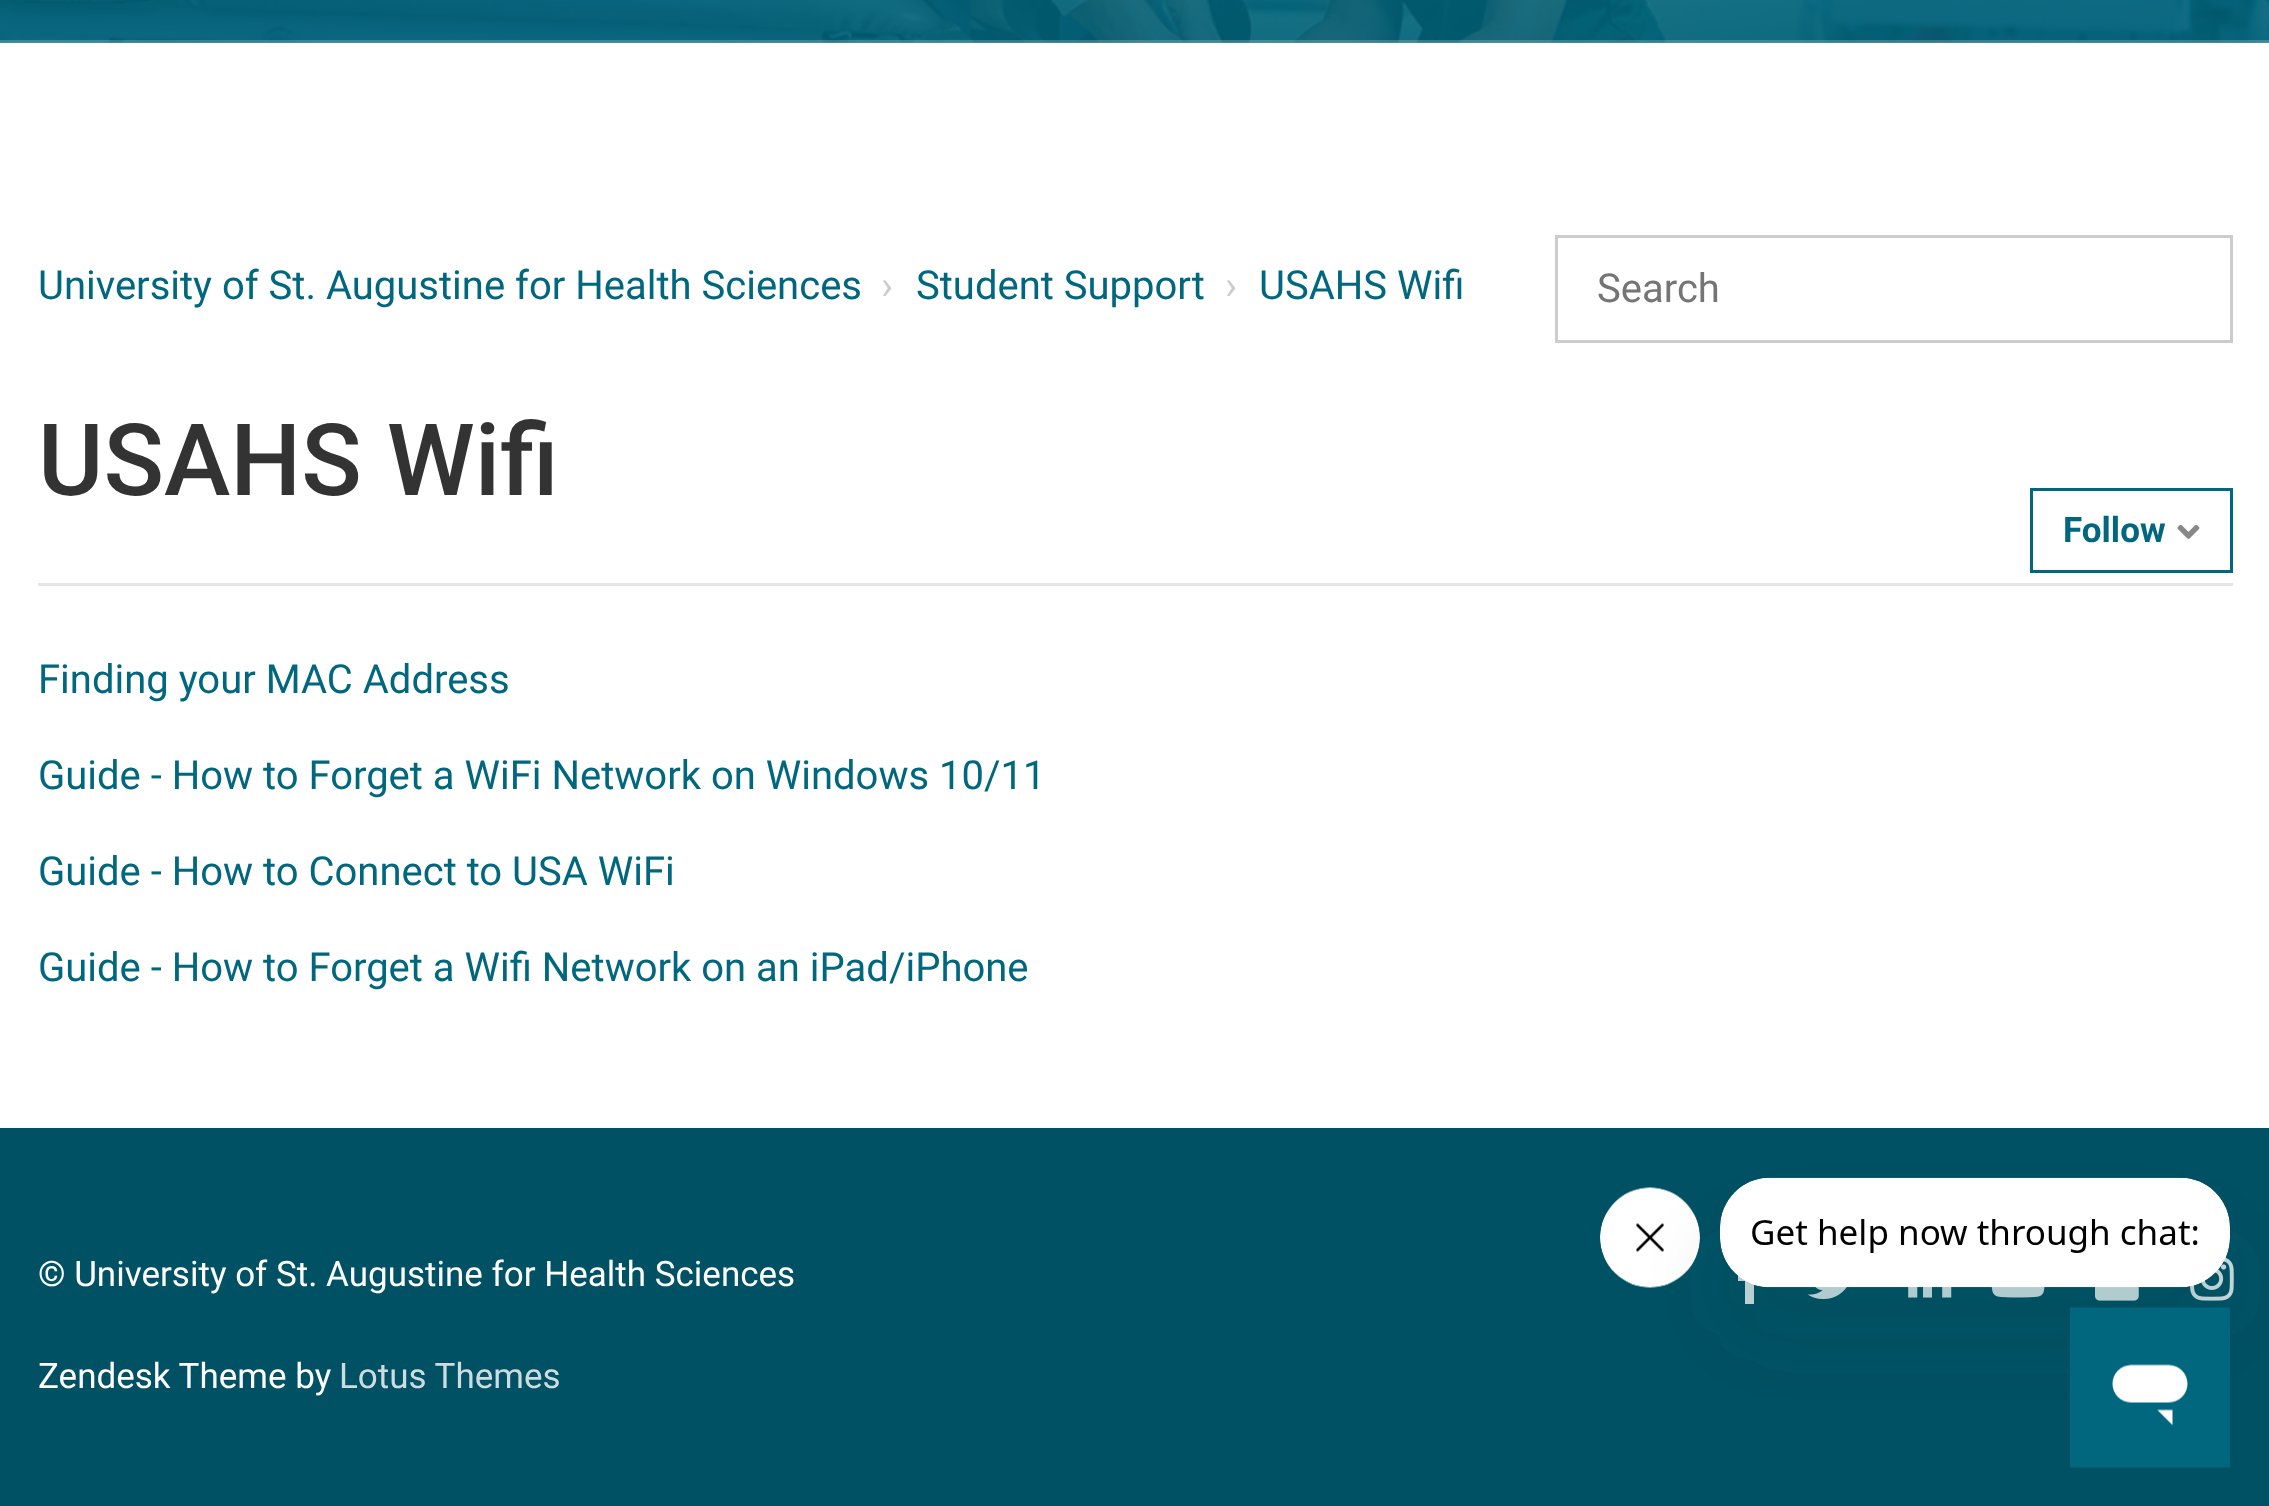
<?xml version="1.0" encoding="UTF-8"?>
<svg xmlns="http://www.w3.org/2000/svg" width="2269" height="1506">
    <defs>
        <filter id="blur1" x="-50%" y="-200%" width="200%" height="500%"><feGaussianBlur stdDeviation="37.5"/></filter>
    </defs>
    <rect width="100%" height="100%" fill="#FFFFFF"/>
    <rect x="0" y="42" width="2269" height="1" fill="#267E92"/>
    <image x="0" y="0" width="2269" height="43" href="img_01.png"/>
    <rect x="0" y="40" width="2269" height="3" fill="#FFFFFF" fill-opacity="0.2"/>
    <text x="38" y="299" font-family="Roboto" font-size="40" fill="#00677F">University of St. Augustine for Health Sciences</text>
    <text x="881" y="299" font-family="Roboto" font-size="40" fill="#CCCCCC">›</text>
    <text x="916" y="299" font-family="Roboto" font-size="40" fill="#00677F">Student Support</text>
    <text x="1225" y="299" font-family="Roboto" font-size="40" fill="#CCCCCC">›</text>
    <text x="1259" y="299" font-family="Roboto" font-size="40" fill="#00677F">USAHS Wifi</text>
    <rect x="1556.5" y="236.5" width="675" height="105" fill="none" stroke="#CCCCCC" stroke-width="3"/>
    <text x="1597" y="302" font-family="Roboto" font-size="40" fill="#757575">Search</text>
    <rect x="38" y="583" width="2195" height="3" fill="#E4E6E3"/>
    <text x="38" y="495" font-family="Roboto" font-size="100" font-weight="500" fill="#333333">USAHS Wifi</text>
    <rect x="2031.5" y="489.5" width="200" height="82" fill="none" stroke="#00677F" stroke-width="3"/>
    <text x="2063" y="542" font-family="Roboto" font-size="35" font-weight="700" fill="#00677F">Follow</text>
    <image x="2177" y="524" width="23" height="15" href="img_02.png"/>
    <text x="38" y="693" font-family="Roboto" font-size="40" fill="#00677F">Finding your MAC Address</text>
    <text x="38" y="789" font-family="Roboto" font-size="40" fill="#00677F">Guide - How to Forget a WiFi Network on Windows 10/11</text>
    <text x="38" y="885" font-family="Roboto" font-size="40" fill="#00677F">Guide - How to Connect to USA WiFi</text>
    <text x="38" y="981" font-family="Roboto" font-size="40" fill="#00677F">Guide - How to Forget a Wifi Network on an iPad/iPhone</text>
    <rect x="0" y="1128" width="2269" height="378" fill="#005164"/>
    <text x="38" y="1286" font-family="Roboto" font-size="35" fill="#FFFFFF">© University of St. Augustine for Health Sciences</text>
    <text x="38" y="1388" font-family="Roboto" font-size="35" fill="#FFFFFF">Zendesk Theme by</text>
    <text x="339" y="1388" font-family="Roboto" font-size="35" fill="#CCDCE0">Lotus Themes</text>
    <path d="M 1745 1304 V 1281 H 1738 V 1272 H 1745 V 1263 C 1747 1254 1756 1253 1763 1254 V 1262 C 1753 1262 1754 1263 1754 1272 H 1762 L 1761 1281 H 1754 V 1304 Z" fill="#CCDCE0"/>
    <image x="1807" y="1287" width="40" height="13" href="img_03.png"/>
    <image x="1908" y="1287" width="44" height="11" href="img_04.png"/>
    <image x="1991" y="1287" width="54" height="11" href="img_05.png"/>
    <image x="2095" y="1287" width="44" height="14" href="img_06.png"/>
    <image x="2190" y="1257" width="44" height="44" href="img_07.png"/>
    <image x="1600" y="1187" width="100" height="101" href="img_09.png"/>
    <rect x="1720" y="1228" width="510" height="110" rx="50" fill="#17494D" fill-opacity="0.15" filter="url(#blur1)"/>
    <image x="1720" y="1177" width="510" height="111" href="img_08.png"/>
    <image x="2070" y="1307" width="160" height="161" href="img_10.png"/>
</svg>
